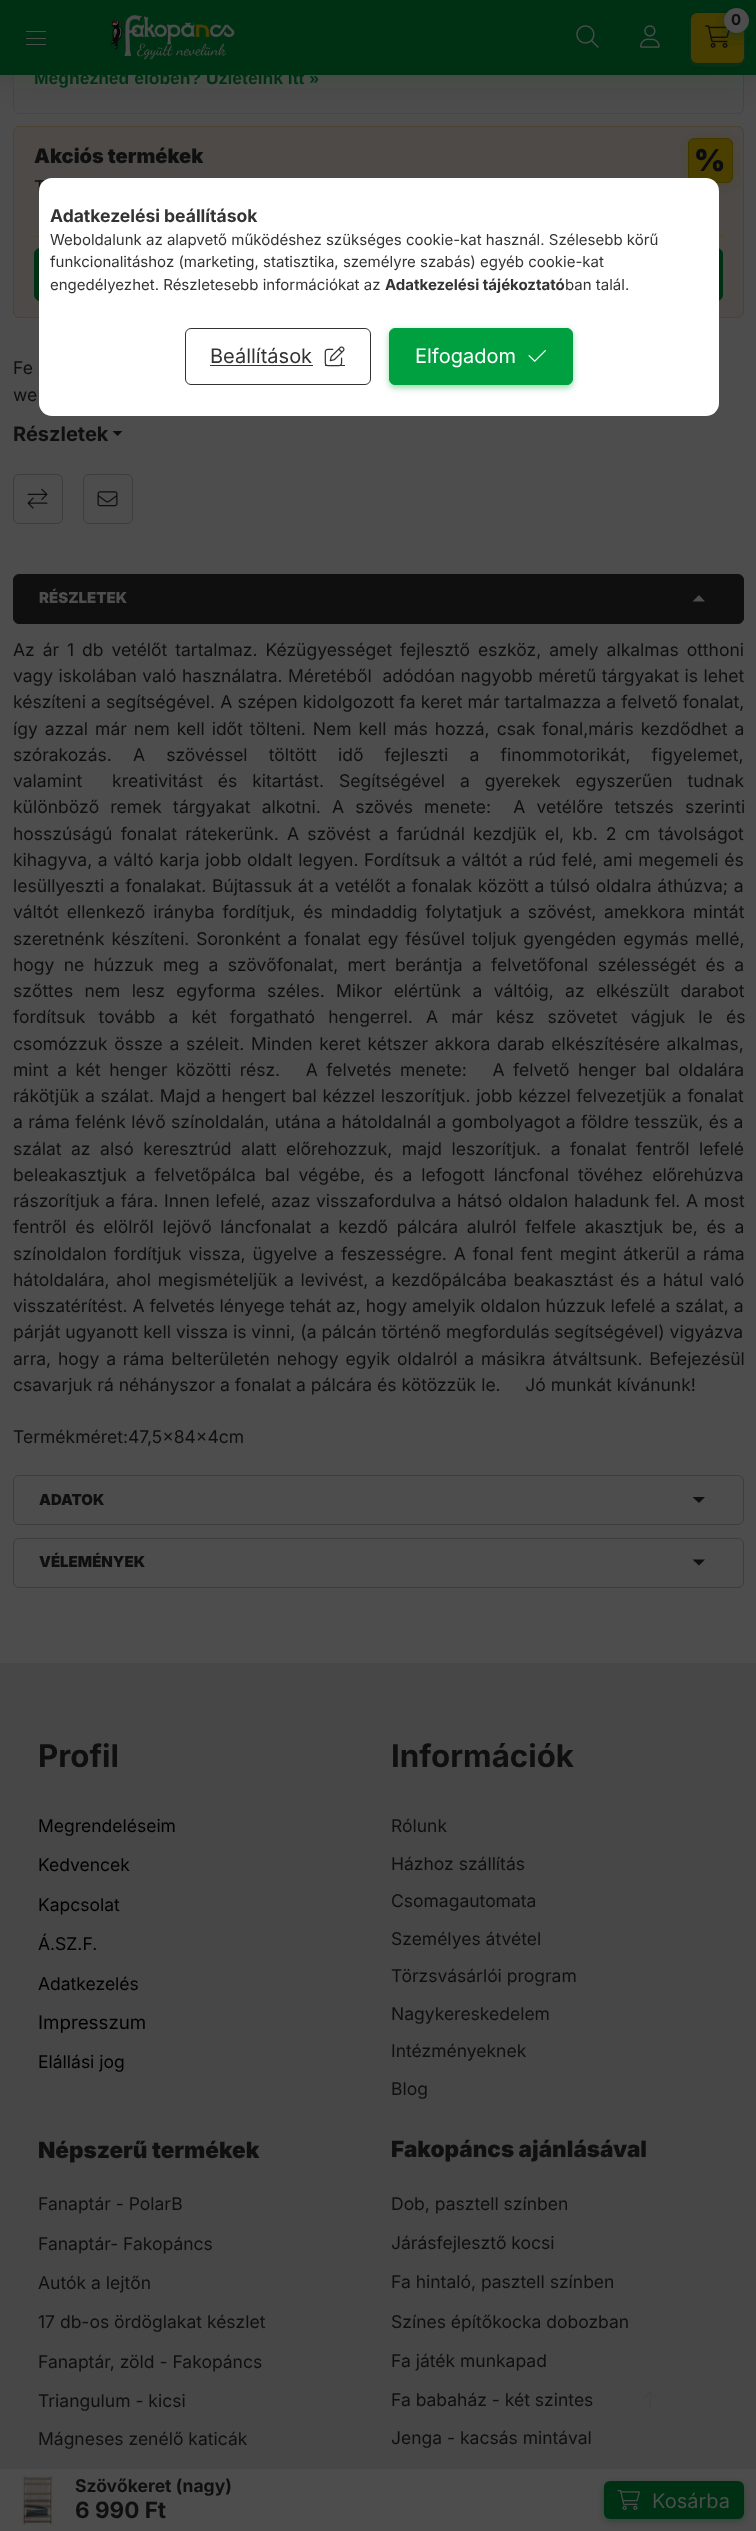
<?xml version="1.0" encoding="UTF-8"?>
<svg xmlns="http://www.w3.org/2000/svg" width="756" height="2531">
    <defs>
        <filter id="blur1" x="-50%" y="-200%" width="200%" height="500%"><feGaussianBlur stdDeviation="19"/></filter>
        <filter id="blur2" x="-50%" y="-200%" width="200%" height="500%"><feGaussianBlur stdDeviation="2.5"/></filter>
        <filter id="blur3" x="-50%" y="-200%" width="200%" height="500%"><feGaussianBlur stdDeviation="6"/></filter>
        <filter id="blur4" x="-50%" y="-200%" width="200%" height="500%"><feGaussianBlur stdDeviation="5"/></filter>
        <filter id="blur5" x="-50%" y="-200%" width="200%" height="500%"><feGaussianBlur stdDeviation="3"/></filter>
    </defs>
    <rect width="100%" height="100%" fill="#4D4D4D"/>
    <rect x="13.5" y="-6.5" width="730" height="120" rx="5.5" fill="none" stroke="#454547"/>
    <rect x="13.5" y="126.5" width="730" height="191" rx="5.5" fill="#4D4A47" stroke="#4C4133"/>
    <rect x="0" y="0" width="756" height="75" fill="#003013" fill-opacity="0.2" filter="url(#blur1)"/>
    <rect x="0" y="0" width="756" height="75" fill="#003013"/>
    <rect x="26" y="31" width="20" height="1" fill="#4D4D4D"/>
    <rect x="26" y="38" width="20" height="1" fill="#4D4D4D"/>
    <rect x="26" y="44" width="20" height="1" fill="#4D4D4D"/>
    <image x="110" y="15" width="125" height="45" href="img_01.png"/>
    <rect x="691" y="15" width="53" height="50" rx="6" fill="#213323" fill-opacity="0.4" filter="url(#blur2)"/>
    <rect x="691" y="13" width="53" height="50" rx="6" fill="#483E02"/>
    <image x="705" y="25" width="25" height="23" href="img_02.png"/>
    <rect x="724" y="14" width="25" height="25" rx="12.5" fill="#003013" fill-opacity="0.4" filter="url(#blur3)"/>
    <circle cx="736.5" cy="20.5" r="12.5" fill="#4D4D4D"/>
    <text x="731" y="25" font-family="Inter" font-size="15" font-weight="700" fill="#0F0F0F">0</text>
    <image x="576" y="25" width="23" height="23" href="img_03.png"/>
    <image x="640" y="25" width="20" height="23" href="img_04.png"/>
    <text x="34" y="84" font-family="Liberation Sans" font-size="17.5" font-weight="700" fill="#003013">Megnéznéd élőben? Üzleteink itt »</text>
    <text x="34" y="163" font-family="Inter" font-size="20" font-weight="900" fill="#0F0F0F">Akciós termékek</text>
    <rect x="688" y="140" width="45" height="45" rx="6" fill="#4B3F00" fill-opacity="0.35" filter="url(#blur4)"/>
    <rect x="688.5" y="138.5" width="44" height="44" rx="5.5" fill="#4B3F00" stroke="#403600"/>
    <text x="694" y="171" font-family="Inter" font-size="30" font-weight="900" fill="#090C11">%</text>
    <text x="34" y="193" font-family="Inter" font-size="17.5" fill="#0F0F0F">T</text>
    <rect x="34" y="236" width="689" height="1" rx="0.5" fill="#4B482F"/>
    <rect x="34.5" y="248.5" width="688" height="52" rx="5.5" fill="#003013" stroke="#003013"/>
    <text font-family="Inter" font-size="17.5" fill="#0F0F0F">
        <tspan x="13" y="374">Fe</tspan>
        <tspan x="13" y="401">we</tspan>
    </text>
    <text x="13" y="441" font-family="Inter" font-size="20" font-weight="700" fill="#0F0F0F">Részletek</text>
    <path d="M 112.5 431 H 122.5 L 117.5 436 Z" fill="#0F0F0F"/>
    <rect x="13.5" y="474.5" width="49" height="49" rx="5.5" fill="none" stroke="#3D3D3D"/>
    <image x="27" y="488" width="21" height="21" href="img_05.png"/>
    <rect x="83.5" y="474.5" width="49" height="49" rx="5.5" fill="none" stroke="#3D3D3D"/>
    <image x="97" y="491" width="21" height="16" href="img_06.png"/>
    <rect x="13.5" y="574.5" width="730" height="49" rx="5.5" fill="#0F0F0F" stroke="#0F0F0F"/>
    <text x="39" y="603" font-family="Inter" font-size="15" font-weight="900" fill="#4D4D4D">RÉSZLETEK</text>
    <path d="M 692.5 601.5 H 705 L 699 595 Z" fill="#4D4D4D"/>
    <text font-family="Inter" font-size="17.5" fill="#0F0F0F" xml:space="preserve"><tspan x="13" y="656" word-spacing="3">Az ár 1 db vetélőt tartalmaz. Kézügyességet fejlesztő eszköz, amely alkalmas otthoni</tspan><tspan x="13" y="682" word-spacing="0.5">vagy iskolában való használatra. Méretéből  adódóan nagyobb méretű tárgyakat is lehet</tspan><tspan x="13" y="708" word-spacing="0.25">készíteni a segítségével. A szépen kidolgozott fa keret már tartalmazza a felvető fonalat,</tspan><tspan x="13" y="735" word-spacing="2.1">így azzal már nem kell időt tölteni. Nem kell más hozzá, csak fonal,máris kezdődhet a</tspan><tspan x="13" y="761" word-spacing="16.25">szórakozás. A szövéssel töltött idő fejleszti a finommotorikát, figyelemet,</tspan><tspan x="13" y="787" word-spacing="10">valamint  kreativitást és kitartást. Segítségével a gyerekek egyszerűen tudnak</tspan><tspan x="13" y="813" word-spacing="6.25">különböző remek tárgyakat alkotni. A szövés menete:  A vetélőre tetszés szerinti</tspan><tspan x="13" y="840" word-spacing="3.25">hosszúságú fonalat rátekerünk. A szövést a farúdnál kezdjük el, kb. 2 cm távolságot</tspan><tspan x="13" y="866" word-spacing="0.75">kihagyva, a váltó karja jobb oldalt legyen. Fordítsuk a váltót a rúd felé, ami megemeli és</tspan><tspan x="13" y="892" word-spacing="0.8">lesüllyeszti a fonalakat. Bújtassuk át a vetélőt a fonalak között a túlsó oldalra áthúzva; a</tspan><tspan x="13" y="918" word-spacing="3">váltót ellenkező irányba fordítjuk, és mindaddig folytatjuk a szövést, amekkora mintát</tspan><tspan x="13" y="945" word-spacing="2">szeretnénk készíteni. Soronként a fonalat egy fésűvel toljuk gyengéden egymás mellé,</tspan><tspan x="13" y="971" word-spacing="4.4">hogy ne húzzuk meg a szövőfonalat, mert berántja a felvetőfonal szélességét és a</tspan><tspan x="13" y="997" word-spacing="6.4">szőttes nem lesz egyforma széles. Mikor elértünk a váltóig, az elkészült darabot</tspan><tspan x="13" y="1023" word-spacing="8.25">fordítsuk tovább a két forgatható hengerrel. A már kész szövetet vágjuk le és</tspan><tspan x="13" y="1050" word-spacing="1.75">csomózzuk össze a széleit. Minden keret kétszer akkora darab elkészítésére alkalmas,</tspan><tspan x="13" y="1076" word-spacing="3.6">mint a két henger közötti rész.   A felvetés menete:   A felvető henger bal oldalára</tspan><tspan x="13" y="1102" word-spacing="0.8">rákötjük a szálat. Majd a hengert bal kézzel leszorítjuk. jobb kézzel felvezetjük a fonalat</tspan><tspan x="13" y="1128" word-spacing="0.5">a ráma felénk lévő színoldalán, utána a hátoldalnál a gombolyagot a földre tesszük, és a</tspan><tspan x="13" y="1155" word-spacing="4.6">szálat az alsó keresztrúd alatt előrehozzuk, majd leszorítjuk. a fonalat fentről lefelé</tspan><tspan x="13" y="1181" word-spacing="4">beleakasztjuk a felvetőpálca bal végébe, és a lefogott láncfonal tövéhez előrehúzva</tspan><tspan x="13" y="1207" word-spacing="0.75">rászorítjuk a fára. Innen lefelé, azaz visszafordulva a hátsó oldalon haladunk fel. A most</tspan><tspan x="13" y="1233" word-spacing="3.75">fentről és elölről lejövő láncfonalat a kezdő pálcára alulról felfele akasztjuk be, és a</tspan><tspan x="13" y="1260" word-spacing="2">színoldalon fordítjuk vissza, ügyelve a feszességre. A fonal fent megint átkerül a ráma</tspan><tspan x="13" y="1286" word-spacing="1.75">hátoldalára, ahol megismételjük a levivést, a kezdőpálcába beakasztást és a hátul való</tspan><tspan x="13" y="1312">visszatérítést. A felvetés lényege tehát az, hogy amelyik oldalon húzzuk lefelé a szálat, a</tspan><tspan x="13" y="1338">párját ugyanott kell vissza is vinni, (a pálcán történő megfordulás segítségével) vigyázva</tspan><tspan x="13" y="1365" word-spacing="1.9">arra, hogy a ráma belterületén nehogy egyik oldalról a másikra átváltsunk. Befejezésül</tspan><tspan x="13" y="1391">csavarjuk rá néhányszor a fonalat a pálcára és kötözzük le.     Jó munkát kívánunk!</tspan></text>
    <text x="13" y="1443" font-family="Inter" font-size="17.5" fill="#0F0F0F">Termékméret:47,5x84x4cm</text>
    <rect x="13.5" y="1475.5" width="730" height="49" rx="5.5" fill="none" stroke="#3D3D3D"/>
    <text x="39" y="1505" font-family="Inter" font-size="15" font-weight="900" fill="#0F0F0F">ADATOK</text>
    <path d="M 692.5 1497 H 705 L 699 1503 Z" fill="#0F0F0F"/>
    <rect x="13.5" y="1538.5" width="730" height="49" rx="5.5" fill="none" stroke="#3D3D3D"/>
    <text x="39" y="1567" font-family="Inter" font-size="15" font-weight="900" fill="#0F0F0F">VÉLEMÉNYEK</text>
    <path d="M 692.5 1559.5 H 705 L 699 1565.5 Z" fill="#0F0F0F"/>
    <image x="22" y="2475" width="31" height="50" href="img_07.png"/>
    <text x="75" y="2492" font-family="Inter" font-size="17.5" font-weight="700" fill="#0F0F0F">Szövőkeret (nagy)</text>
    <text x="75" y="2518" font-family="Inter" font-size="22.5" font-weight="700" fill="#0F0F0F">6 990 Ft</text>
    <rect x="604" y="2484" width="140" height="37" rx="6" fill="#003013" fill-opacity="0.4" filter="url(#blur5)"/>
    <rect x="604" y="2481" width="140" height="38" rx="6" fill="#003013"/>
    <image x="617" y="2490" width="23" height="20" href="img_08.png"/>
    <text x="652" y="2508" font-family="Inter" font-size="20" fill="#4D4D4D">Kosárba</text>
    <rect x="0" y="1663" width="756" height="806" fill="#474747"/>
    <text x="38" y="1767" font-family="Inter" font-size="31.25" font-weight="700" fill="#0F0F0F">Profil</text>
    <text x="38" y="1832" font-family="Inter" font-size="17.5" fill="#000000">Megrendeléseim</text>
    <text x="38" y="1871" font-family="Inter" font-size="17.5" fill="#000000">Kedvencek</text>
    <text x="38" y="1911" font-family="Inter" font-size="17.5" fill="#000000">Kapcsolat</text>
    <text x="38" y="1950" font-family="Inter" font-size="17.5" fill="#000000">Á.SZ.F.</text>
    <text x="38" y="1990" font-family="Inter" font-size="17.5" fill="#000000">Adatkezelés</text>
    <text x="38" y="2029" font-family="Inter" font-size="18.75" fill="#000000">Impresszum</text>
    <text x="38" y="2068" font-family="Inter" font-size="17.5" fill="#000000">Elállási jog</text>
    <text x="38" y="2158" font-family="Inter" font-size="22.5" font-weight="900" fill="#0F0F0F">Népszerű termékek</text>
    <text x="38" y="2210" font-family="Inter" font-size="17.5" fill="#0F0F0F">Fanaptár - PolarB</text>
    <text x="38" y="2250" font-family="Inter" font-size="17.5" fill="#0F0F0F">Fanaptár- Fakopáncs</text>
    <text x="38" y="2289" font-family="Inter" font-size="17.5" fill="#0F0F0F">Autók a lejtőn</text>
    <text x="38" y="2328" font-family="Inter" font-size="17.5" fill="#0F0F0F">17 db-os ördöglakat készlet</text>
    <text x="38" y="2368" font-family="Inter" font-size="17.5" fill="#0F0F0F">Fanaptár, zöld - Fakopáncs</text>
    <text x="38" y="2407" font-family="Inter" font-size="17.5" fill="#0F0F0F">Triangulum - kicsi</text>
    <text x="38" y="2445" font-family="Inter" font-size="17.5" fill="#0F0F0F">Mágneses zenélő katicák</text>
    <text x="391" y="1767" font-family="Inter" font-size="31.25" font-weight="700" fill="#0F0F0F">Információk</text>
    <text x="391" y="1832" font-family="Inter" font-size="17.5" fill="#0F0F0F">Rólunk</text>
    <text x="391" y="1870" font-family="Inter" font-size="17.5" fill="#0F0F0F">Házhoz szállítás</text>
    <text x="391" y="1907" font-family="Inter" font-size="17.5" fill="#0F0F0F">Csomagautomata</text>
    <text x="391" y="1945" font-family="Inter" font-size="17.5" fill="#0F0F0F">Személyes átvétel</text>
    <text x="391" y="1982" font-family="Inter" font-size="17.5" fill="#0F0F0F">Törzsvásárlói program</text>
    <text x="391" y="2020" font-family="Inter" font-size="17.5" fill="#0F0F0F">Nagykereskedelem</text>
    <text x="391" y="2057" font-family="Inter" font-size="17.5" fill="#0F0F0F">Intézményeknek</text>
    <text x="391" y="2095" font-family="Inter" font-size="17.5" fill="#0F0F0F">Blog</text>
    <text x="391" y="2157" font-family="Inter" font-size="22.5" font-weight="900" fill="#0F0F0F">Fakopáncs ajánlásával</text>
    <text x="391" y="2210" font-family="Inter" font-size="17.5" fill="#0F0F0F">Dob, pasztell színben</text>
    <text x="391" y="2249" font-family="Inter" font-size="17.5" fill="#0F0F0F">Járásfejlesztő kocsi</text>
    <text x="391" y="2288" font-family="Inter" font-size="17.5" fill="#0F0F0F">Fa hintaló, pasztell színben</text>
    <text x="391" y="2328" font-family="Inter" font-size="17.5" fill="#0F0F0F">Színes építőkocka dobozban</text>
    <text x="391" y="2367" font-family="Inter" font-size="17.5" fill="#0F0F0F">Fa játék munkapad</text>
    <text x="391" y="2406" font-family="Inter" font-size="17.5" fill="#0F0F0F">Fa babaház - két szintes</text>
    <text x="391" y="2444" font-family="Inter" font-size="17.5" fill="#0F0F0F">Jenga - kacsás mintával</text>
    <rect x="39" y="178" width="680" height="238" rx="13" fill="#FFFFFF"/>
    <text x="50" y="222" font-family="Inter" font-size="17.5" font-weight="700" fill="#333333">Adatkezelési beállítások</text>
    <text font-family="Inter" font-size="15" fill="#333333">
        <tspan x="50" y="245">Weboldalunk az alapvető működéshez szükséges cookie-kat használ. Szélesebb körű</tspan>
        <tspan x="50" y="267">funkcionalitáshoz (marketing, statisztika, személyre szabás) egyéb cookie-kat</tspan>
        <tspan x="50" y="290">engedélyezhet. Részletesebb információkat az</tspan>
    </text>
    <text x="385" y="290" font-family="Inter" font-size="15" font-weight="700" fill="#333333">Adatkezelési tájékoztató</text>
    <text x="565" y="290" font-family="Inter" font-size="15" fill="#333333">ban talál.</text>
    <rect x="185.5" y="328.5" width="185" height="56" rx="5.5" fill="none" stroke="#333333"/>
    <text x="210" y="363" font-family="Inter" font-size="20" fill="#333333">Beállítások</text>
    <rect x="210" y="365" width="103" height="1" fill="#333333"/>
    <rect x="325" y="365" width="20" height="1" fill="#333333"/>
    <image x="324" y="346" width="21" height="21" href="img_09.png"/>
    <rect x="389" y="330" width="184" height="58" rx="6" fill="#00A040" fill-opacity="0.4" filter="url(#blur5)"/>
    <rect x="389.5" y="328.5" width="183" height="56" rx="5.5" fill="#00A040" stroke="#00A040"/>
    <text x="415" y="363" font-family="Inter" font-size="20" fill="#FFFFFF">Elfogadom</text>
    <image x="528" y="350" width="18" height="12" href="img_10.png"/>
    <image x="642" y="2391" width="16" height="18" href="img_11.png"/>
</svg>
